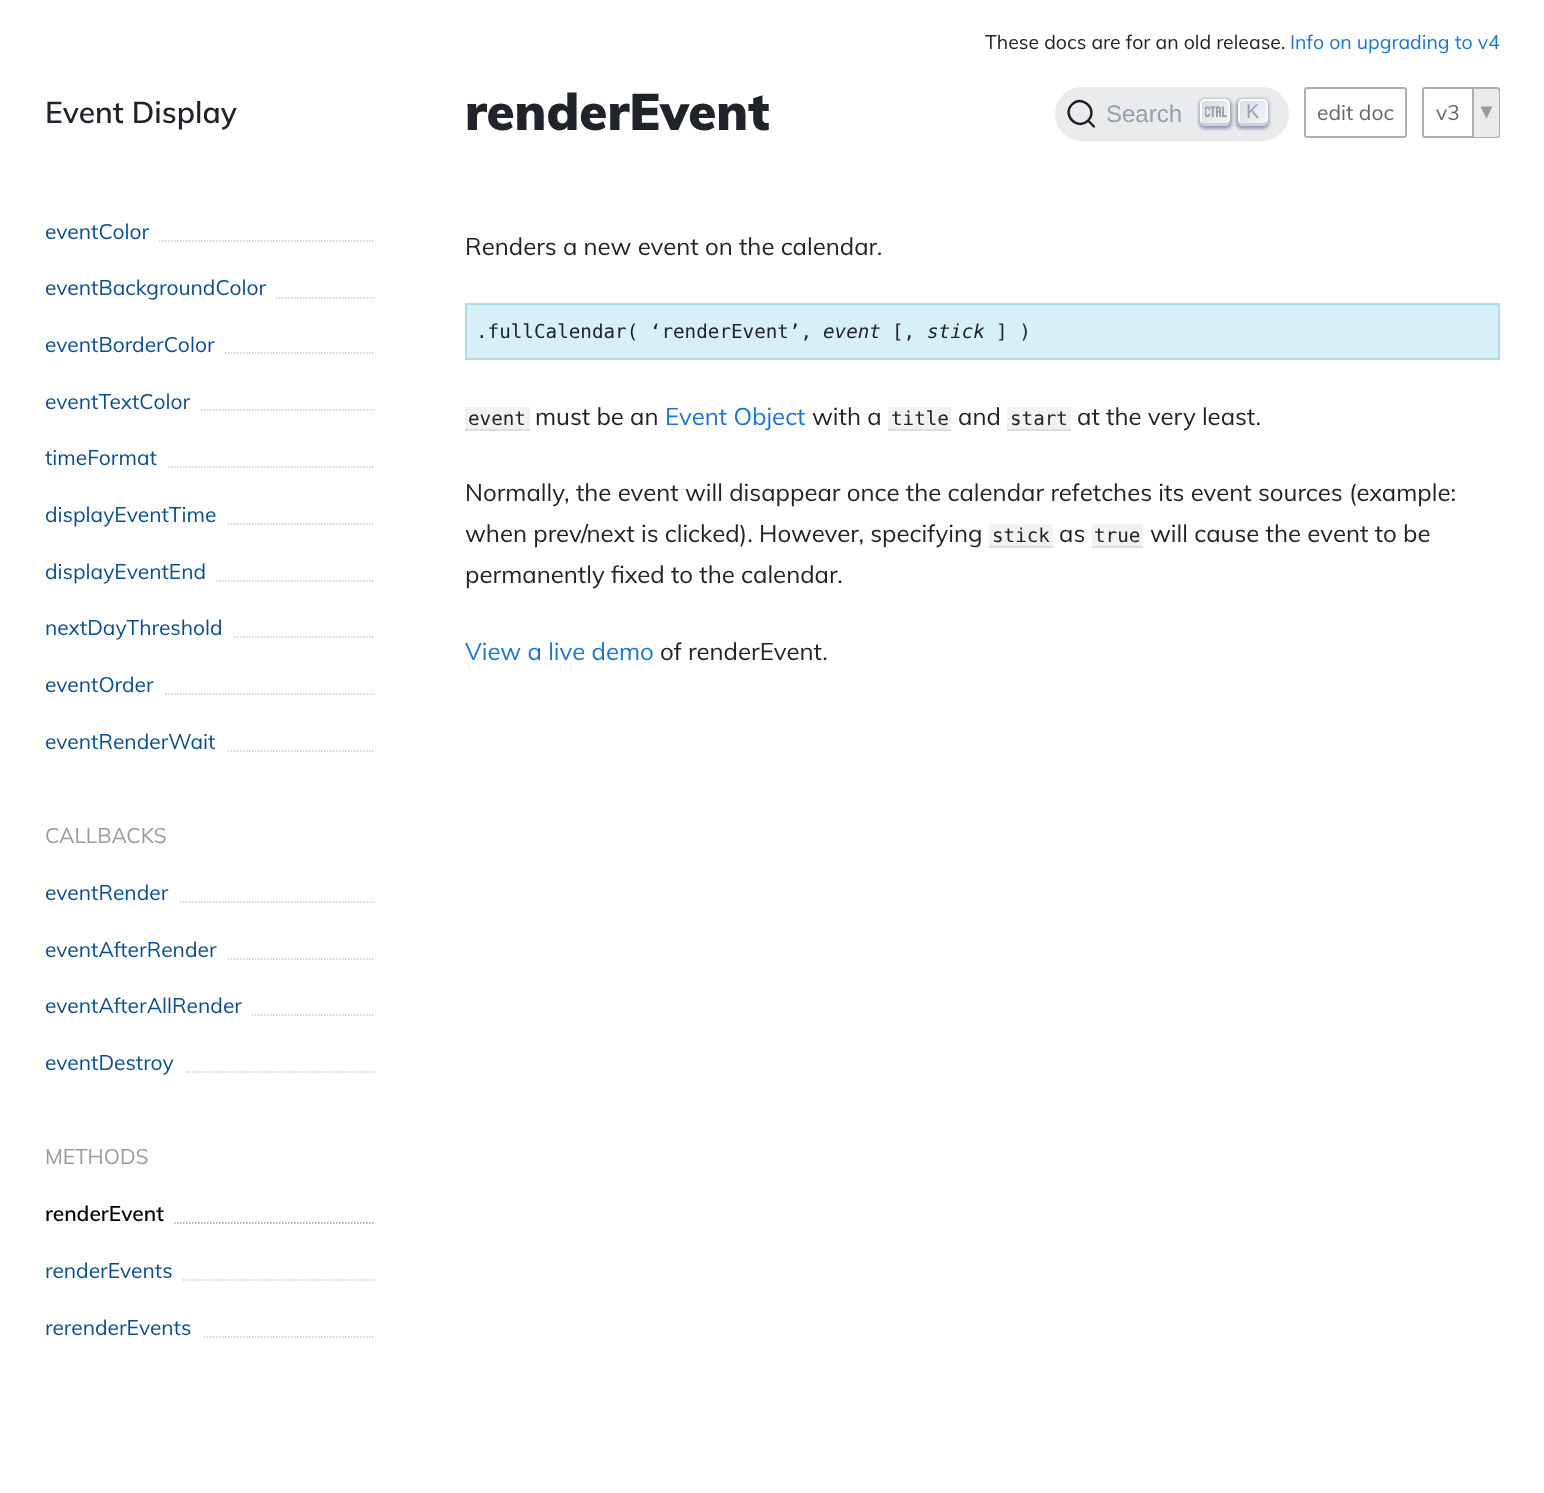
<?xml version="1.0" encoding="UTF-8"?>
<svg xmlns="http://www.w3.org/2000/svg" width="1544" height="1493">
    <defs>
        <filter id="blur1" x="-50%" y="-200%" width="200%" height="500%"><feGaussianBlur stdDeviation="1.5"/></filter>
        <linearGradient id="g1" gradientUnits="userSpaceOnUse" x1="1201" y1="98" x2="1229" y2="127"><stop offset="0" stop-color="#D5DBE4"/><stop offset="1" stop-color="#F8F8F8"/></linearGradient>
        <linearGradient id="g2" gradientUnits="userSpaceOnUse" x1="1238" y1="98" x2="1267" y2="127"><stop offset="0" stop-color="#D5DBE4"/><stop offset="1" stop-color="#F8F8F8"/></linearGradient>
    </defs>
    <rect width="100%" height="100%" fill="#FFFFFF"/>
    <text x="45" y="123" font-family="Muli" font-size="30" font-weight="600" fill="#20232A">Event Display</text>
    <text x="45" y="239" font-family="Muli" font-size="21" fill="#0B4D8E">eventColor</text>
    <path d="M 45 241 H 375" fill="none" stroke="#C8C9CC" stroke-width="1.5" stroke-dasharray="1.5 1.5"/>
    <rect x="45" y="240" width="113" height="2" fill="#FFFFFF"/>
    <path d="M 45 298 H 375" fill="none" stroke="#C8C9CC" stroke-width="1.5" stroke-dasharray="1.5 1.5"/>
    <rect x="45" y="297" width="230" height="2" fill="#FFFFFF"/>
    <text x="45" y="295" font-family="Muli" font-size="21" fill="#0B4D8E">eventBackgroundColor</text>
    <path d="M 45 353 H 375" fill="none" stroke="#C8C9CC" stroke-width="1.5" stroke-dasharray="1.5 1.5"/>
    <rect x="45" y="352" width="179" height="2" fill="#FFFFFF"/>
    <text x="45" y="352" font-family="Muli" font-size="21" fill="#0B4D8E">eventBorderColor</text>
    <path d="M 45 410 H 375" fill="none" stroke="#C8C9CC" stroke-width="1.5" stroke-dasharray="1.5 1.5"/>
    <rect x="45" y="409" width="155" height="2" fill="#FFFFFF"/>
    <text x="45" y="409" font-family="Muli" font-size="21" fill="#0B4D8E">eventTextColor</text>
    <text x="45" y="465" font-family="Muli" font-size="21" fill="#0B4D8E">timeFormat</text>
    <path d="M 45 467 H 375" fill="none" stroke="#C8C9CC" stroke-width="1.5" stroke-dasharray="1.5 1.5"/>
    <rect x="45" y="466" width="122" height="2" fill="#FFFFFF"/>
    <path d="M 45 524 H 375" fill="none" stroke="#C8C9CC" stroke-width="1.5" stroke-dasharray="1.5 1.5"/>
    <rect x="45" y="523" width="182" height="2" fill="#FFFFFF"/>
    <text x="45" y="522" font-family="Muli" font-size="21" fill="#0B4D8E">displayEventTime</text>
    <path d="M 45 581 H 375" fill="none" stroke="#C8C9CC" stroke-width="1.5" stroke-dasharray="1.5 1.5"/>
    <rect x="45" y="580" width="170" height="2" fill="#FFFFFF"/>
    <text x="45" y="579" font-family="Muli" font-size="21" fill="#0B4D8E">displayEventEnd</text>
    <path d="M 45 637 H 375" fill="none" stroke="#C8C9CC" stroke-width="1.5" stroke-dasharray="1.5 1.5"/>
    <rect x="45" y="636" width="188" height="2" fill="#FFFFFF"/>
    <text x="45" y="635" font-family="Muli" font-size="21" fill="#0B4D8E">nextDayThreshold</text>
    <text x="45" y="692" font-family="Muli" font-size="21" fill="#0B4D8E">eventOrder</text>
    <path d="M 45 694 H 375" fill="none" stroke="#C8C9CC" stroke-width="1.5" stroke-dasharray="1.5 1.5"/>
    <rect x="45" y="693" width="119" height="2" fill="#FFFFFF"/>
    <text x="45" y="749" font-family="Muli" font-size="21" fill="#0B4D8E">eventRenderWait</text>
    <path d="M 45 751 H 375" fill="none" stroke="#C8C9CC" stroke-width="1.5" stroke-dasharray="1.5 1.5"/>
    <rect x="45" y="750" width="182" height="2" fill="#FFFFFF"/>
    <text x="45" y="843" font-family="Muli" font-size="21" fill="#989BA2">CALLBACKS</text>
    <text x="45" y="900" font-family="Muli" font-size="21" fill="#0B4D8E">eventRender</text>
    <path d="M 45 902 H 375" fill="none" stroke="#C8C9CC" stroke-width="1.5" stroke-dasharray="1.5 1.5"/>
    <rect x="45" y="901" width="134" height="2" fill="#FFFFFF"/>
    <text x="45" y="957" font-family="Muli" font-size="21" fill="#0B4D8E">eventAfterRender</text>
    <path d="M 45 959 H 375" fill="none" stroke="#C8C9CC" stroke-width="1.5" stroke-dasharray="1.5 1.5"/>
    <rect x="45" y="958" width="182" height="2" fill="#FFFFFF"/>
    <text x="45" y="1013" font-family="Muli" font-size="21" fill="#0B4D8E">eventAfterAllRender</text>
    <path d="M 45 1015 H 375" fill="none" stroke="#C8C9CC" stroke-width="1.5" stroke-dasharray="1.5 1.5"/>
    <rect x="45" y="1014" width="206" height="2" fill="#FFFFFF"/>
    <path d="M 45 1072 H 375" fill="none" stroke="#C8C9CC" stroke-width="1.5" stroke-dasharray="1.5 1.5"/>
    <rect x="45" y="1071" width="140" height="2" fill="#FFFFFF"/>
    <text x="45" y="1070" font-family="Muli" font-size="21" fill="#0B4D8E">eventDestroy</text>
    <text x="45" y="1164" font-family="Muli" font-size="21" fill="#989BA2">METHODS</text>
    <text x="45" y="1221" font-family="Muli" font-size="21" font-weight="600" fill="#000000">renderEvent</text>
    <path d="M 45 1223 H 375" fill="none" stroke="#A0A0A0" stroke-width="1.5" stroke-dasharray="1.5 1.5"/>
    <rect x="45" y="1222" width="128" height="2" fill="#FFFFFF"/>
    <text x="45" y="1278" font-family="Muli" font-size="21" fill="#0B4D8E">renderEvents</text>
    <path d="M 45 1280 H 375" fill="none" stroke="#C8C9CC" stroke-width="1.5" stroke-dasharray="1.5 1.5"/>
    <rect x="45" y="1279" width="137" height="2" fill="#FFFFFF"/>
    <text x="45" y="1335" font-family="Muli" font-size="21" fill="#0B4D8E">rerenderEvents</text>
    <path d="M 45 1337 H 375" fill="none" stroke="#C8C9CC" stroke-width="1.5" stroke-dasharray="1.5 1.5"/>
    <rect x="45" y="1336" width="158" height="2" fill="#FFFFFF"/>
    <text x="465" y="130" font-family="Muli" font-size="51" font-weight="900" fill="#20232A">renderEvent</text>
    <text x="985" y="49" font-family="Muli" font-size="19.5" fill="#20232A">These docs are for an old release.</text>
    <text x="1290" y="49" font-family="Muli" font-size="19.5" fill="#1976D2">Info on upgrading to v4</text>
    <rect x="1055" y="87" width="234" height="54" rx="27" fill="#EAEBEC"/>
    <path d="M 1088 120.5 L 1094 126.5 L 1088 120.5 C 1077.5 131 1061.5 115 1072 104.5 C 1082.5 94 1098.5 110 1088 120.5 Z" fill="none" stroke="#1C1E21" stroke-width="2.4" stroke-linecap="round" stroke-linejoin="round"/>
    <text x="1106" y="122" font-family="Liberation Sans" font-size="24" fill="#969FAF">Search</text>
    <rect x="1199" y="99" width="33" height="30" rx="6" fill="#1E235A" fill-opacity="0.4" filter="url(#blur1)"/>
    <rect x="1201" y="100" width="28" height="25" rx="4" fill="url(#g1)" stroke="#FFFFFF" stroke-width="2"/>
    <path d="M 1230 119 C 1229.5 121.5 1227.5 123 1222 123 H 1204 C 1201.5 123 1200.5 121.5 1200 119.5 C 1200 125.5 1202.5 126 1208.5 126 H 1221.5 C 1228 126 1230 125.5 1230 119 Z" fill="#CDCDE6"/>
    <image x="1205" y="106" width="22" height="12" href="img_01.png"/>
    <rect x="1236" y="99" width="33" height="30" rx="6" fill="#1E235A" fill-opacity="0.4" filter="url(#blur1)"/>
    <rect x="1239" y="100" width="28" height="25" rx="4" fill="url(#g2)" stroke="#FFFFFF" stroke-width="2"/>
    <path d="M 1268 119 C 1267.5 121.5 1265.5 123 1260 123 H 1242 C 1239.5 123 1238.5 121.5 1238 119.5 C 1238 125.5 1240.5 126 1246.5 126 H 1259.5 C 1266 126 1268 125.5 1268 119 Z" fill="#CDCDE6"/>
    <text x="1246" y="118" font-family="Liberation Sans" font-size="20" fill="#969FAF">K</text>
    <rect x="1305" y="88" width="101" height="49" rx="2" fill="none" stroke="#ADAEAF" stroke-width="2"/>
    <text x="1317" y="120" font-family="Muli" font-size="21" fill="#656667">edit doc</text>
    <rect x="1423" y="88" width="76" height="49" rx="2" fill="none" stroke="#ADAEAF" stroke-width="2"/>
    <text x="1436" y="120" font-family="Muli" font-size="21" fill="#656667">v3</text>
    <path d="M 1472 89 H 1496 C 1497.5 89 1499 90.5 1499 92 V 134 C 1499 135.5 1497.5 137 1496 137 H 1472 Z" fill="#EAEBEC"/>
    <rect x="1472" y="89" width="2" height="48" fill="#ADAEAF"/>
    <path d="M 1480.5 106.5 H 1492.5 L 1486.5 118.5 Z" fill="#989999"/>
    <text x="465" y="255" font-family="Muli" font-size="24" fill="#20232A">Renders a new event on the calendar.</text>
    <rect x="466" y="304" width="1033" height="55" fill="#D7F0F7" stroke="#A9DDED" stroke-width="2"/>
    <text x="476" y="338" font-family="DejaVu Sans Mono" font-size="19.25" fill="#20232A">.fullCalendar( ‘renderEvent’,</text>
    <text x="823" y="338" font-family="DejaVu Sans Mono" font-size="19.25" font-style="italic" fill="#20232A">event</text>
    <text x="892" y="338" font-family="DejaVu Sans Mono" font-size="19.25" fill="#20232A">[,</text>
    <text x="927" y="338" font-family="DejaVu Sans Mono" font-size="19.25" font-style="italic" fill="#20232A">stick</text>
    <text x="996" y="338" font-family="DejaVu Sans Mono" font-size="19.25" fill="#20232A">] )</text>
    <rect x="465" y="407" width="65" height="22" fill="#F2F2F2"/>
    <text x="468" y="425" font-family="DejaVu Sans Mono" font-size="19.25" fill="#20232A">event</text>
    <rect x="465" y="429" width="65" height="2" fill="#DDDDDD"/>
    <text x="535" y="425" font-family="Muli" font-size="24" fill="#20232A">must be an</text>
    <text x="665" y="425" font-family="Muli" font-size="24" fill="#1976D2">Event Object</text>
    <text x="812" y="425" font-family="Muli" font-size="24" fill="#20232A">with a</text>
    <rect x="888" y="407" width="63" height="22" fill="#F2F2F2"/>
    <text x="891" y="425" font-family="DejaVu Sans Mono" font-size="19.25" fill="#20232A">title</text>
    <rect x="888" y="429" width="63" height="2" fill="#DDDDDD"/>
    <text x="958" y="425" font-family="Muli" font-size="24" fill="#20232A">and</text>
    <rect x="1007" y="407" width="64" height="22" fill="#F2F2F2"/>
    <text x="1010" y="425" font-family="DejaVu Sans Mono" font-size="19.25" fill="#20232A">start</text>
    <rect x="1007" y="429" width="64" height="2" fill="#DDDDDD"/>
    <text x="1077" y="425" font-family="Muli" font-size="24" fill="#20232A">at the very least.</text>
    <text font-family="Muli" font-size="24" fill="#20232A">
        <tspan x="465" y="501">Normally, the event will disappear once the calendar refetches its event sources (example:</tspan>
        <tspan x="465" y="542">when prev/next is clicked). However, specifying</tspan>
    </text>
    <rect x="989" y="524" width="64" height="22" fill="#F2F2F2"/>
    <text x="992" y="542" font-family="DejaVu Sans Mono" font-size="19.25" fill="#20232A">stick</text>
    <rect x="989" y="546" width="64" height="2" fill="#DDDDDD"/>
    <text x="1059" y="542" font-family="Muli" font-size="24" fill="#20232A">as</text>
    <rect x="1092" y="524" width="51" height="22" fill="#F2F2F2"/>
    <text x="1094" y="542" font-family="DejaVu Sans Mono" font-size="19.25" fill="#20232A">true</text>
    <rect x="1092" y="546" width="51" height="2" fill="#DDDDDD"/>
    <text x="1150" y="542" font-family="Muli" font-size="24" fill="#20232A">will cause the event to be</text>
    <text x="465" y="583" font-family="Muli" font-size="24" fill="#20232A">permanently fixed to the calendar.</text>
    <text x="465" y="660" font-family="Muli" font-size="24" fill="#1976D2">View a live demo</text>
    <text x="660" y="660" font-family="Muli" font-size="24" fill="#20232A">of renderEvent.</text>
</svg>
